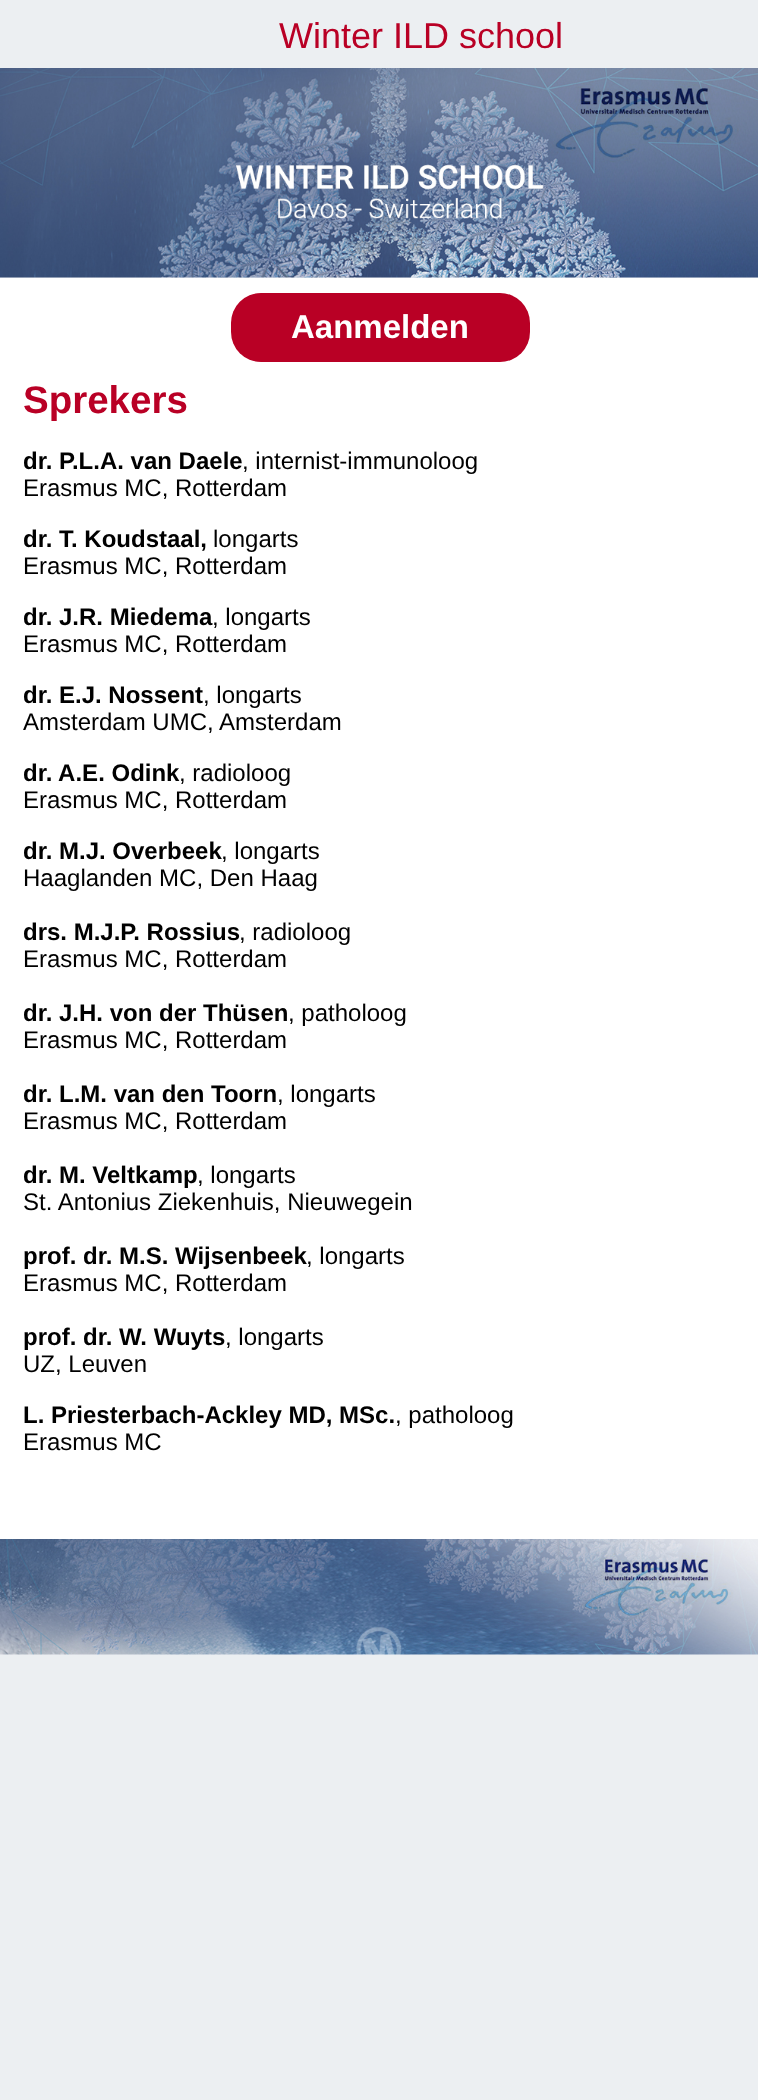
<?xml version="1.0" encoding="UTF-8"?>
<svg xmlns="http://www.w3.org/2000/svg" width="758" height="2100">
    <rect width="100%" height="100%" fill="#ECEFF2"/>
    <text x="279" y="48" font-family="Liberation Sans" font-size="36" fill="#B90025">Winter ILD school</text>
    <image x="0" y="68" width="758" height="210" href="img_01.png"/>
    <rect x="0" y="278" width="758" height="1261" fill="#FFFFFF"/>
    <rect x="231" y="293" width="299" height="69" rx="30" fill="#B90025"/>
    <text x="291" y="338" font-family="Liberation Sans" font-size="33" font-weight="700" fill="#FFFFFF">Aanmelden</text>
    <text x="23" y="413" font-family="Liberation Sans" font-size="38.5" font-weight="700" fill="#B90025">Sprekers</text>
    <text x="23" y="469" font-family="Liberation Sans" font-size="24" font-weight="700" fill="#000000">dr. P.L.A. van Daele</text>
    <text x="242" y="469" font-family="Liberation Sans" font-size="24" fill="#000000">, internist-immunoloog</text>
    <text x="23" y="496" font-family="Liberation Sans" font-size="24" fill="#000000">Erasmus MC, Rotterdam</text>
    <text x="23" y="547" font-family="Liberation Sans" font-size="24" font-weight="700" fill="#000000">dr. T. Koudstaal,</text>
    <text x="213" y="547" font-family="Liberation Sans" font-size="24" fill="#000000">longarts</text>
    <text x="23" y="574" font-family="Liberation Sans" font-size="24" fill="#000000">Erasmus MC, Rotterdam</text>
    <text x="23" y="625" font-family="Liberation Sans" font-size="24" font-weight="700" fill="#000000">dr. J.R. Miedema</text>
    <text x="212" y="625" font-family="Liberation Sans" font-size="24" fill="#000000">, longarts</text>
    <text x="23" y="652" font-family="Liberation Sans" font-size="24" fill="#000000">Erasmus MC, Rotterdam</text>
    <text x="23" y="703" font-family="Liberation Sans" font-size="24" font-weight="700" fill="#000000">dr. E.J. Nossent</text>
    <text x="203" y="703" font-family="Liberation Sans" font-size="24" fill="#000000">, longarts</text>
    <text x="23" y="730" font-family="Liberation Sans" font-size="24" fill="#000000">Amsterdam UMC, Amsterdam</text>
    <text x="23" y="781" font-family="Liberation Sans" font-size="24" font-weight="700" fill="#000000">dr. A.E. Odink</text>
    <text x="179" y="781" font-family="Liberation Sans" font-size="24" fill="#000000">, radioloog</text>
    <text x="23" y="808" font-family="Liberation Sans" font-size="24" fill="#000000">Erasmus MC, Rotterdam</text>
    <text x="23" y="859" font-family="Liberation Sans" font-size="24" font-weight="700" fill="#000000">dr. M.J. Overbeek</text>
    <text x="221" y="859" font-family="Liberation Sans" font-size="24" fill="#000000">, longarts</text>
    <text x="23" y="886" font-family="Liberation Sans" font-size="24" fill="#000000">Haaglanden MC, Den Haag</text>
    <text x="23" y="940" font-family="Liberation Sans" font-size="24" font-weight="700" fill="#000000">drs. M.J.P. Rossius</text>
    <text x="239" y="940" font-family="Liberation Sans" font-size="24" fill="#000000">, radioloog</text>
    <text x="23" y="967" font-family="Liberation Sans" font-size="24" fill="#000000">Erasmus MC, Rotterdam</text>
    <text x="23" y="1021" font-family="Liberation Sans" font-size="24" font-weight="700" fill="#000000">dr. J.H. von der Thüsen</text>
    <text x="288" y="1021" font-family="Liberation Sans" font-size="24" fill="#000000">, patholoog</text>
    <text x="23" y="1048" font-family="Liberation Sans" font-size="24" fill="#000000">Erasmus MC, Rotterdam</text>
    <text x="23" y="1102" font-family="Liberation Sans" font-size="24" font-weight="700" fill="#000000">dr. L.M. van den Toorn</text>
    <text x="277" y="1102" font-family="Liberation Sans" font-size="24" fill="#000000">, longarts</text>
    <text x="23" y="1129" font-family="Liberation Sans" font-size="24" fill="#000000">Erasmus MC, Rotterdam</text>
    <text x="23" y="1183" font-family="Liberation Sans" font-size="24" font-weight="700" fill="#000000">dr. M. Veltkamp</text>
    <text x="197" y="1183" font-family="Liberation Sans" font-size="24" fill="#000000">, longarts</text>
    <text x="23" y="1210" font-family="Liberation Sans" font-size="24" fill="#000000">St. Antonius Ziekenhuis, Nieuwegein</text>
    <text x="23" y="1264" font-family="Liberation Sans" font-size="24" font-weight="700" fill="#000000">prof. dr. M.S. Wijsenbeek</text>
    <text x="306" y="1264" font-family="Liberation Sans" font-size="24" fill="#000000">, longarts</text>
    <text x="23" y="1291" font-family="Liberation Sans" font-size="24" fill="#000000">Erasmus MC, Rotterdam</text>
    <text x="23" y="1345" font-family="Liberation Sans" font-size="24" font-weight="700" fill="#000000">prof. dr. W. Wuyts</text>
    <text x="225" y="1345" font-family="Liberation Sans" font-size="24" fill="#000000">, longarts</text>
    <text x="23" y="1372" font-family="Liberation Sans" font-size="24" fill="#000000">UZ, Leuven</text>
    <text x="23" y="1423" font-family="Liberation Sans" font-size="24" font-weight="700" fill="#000000">L. Priesterbach-Ackley MD, MSc.</text>
    <text x="395" y="1423" font-family="Liberation Sans" font-size="24" fill="#000000">, patholoog</text>
    <text x="23" y="1450" font-family="Liberation Sans" font-size="24" fill="#000000">Erasmus MC</text>
    <image x="0" y="1539" width="758" height="116" href="img_02.png"/>
</svg>
